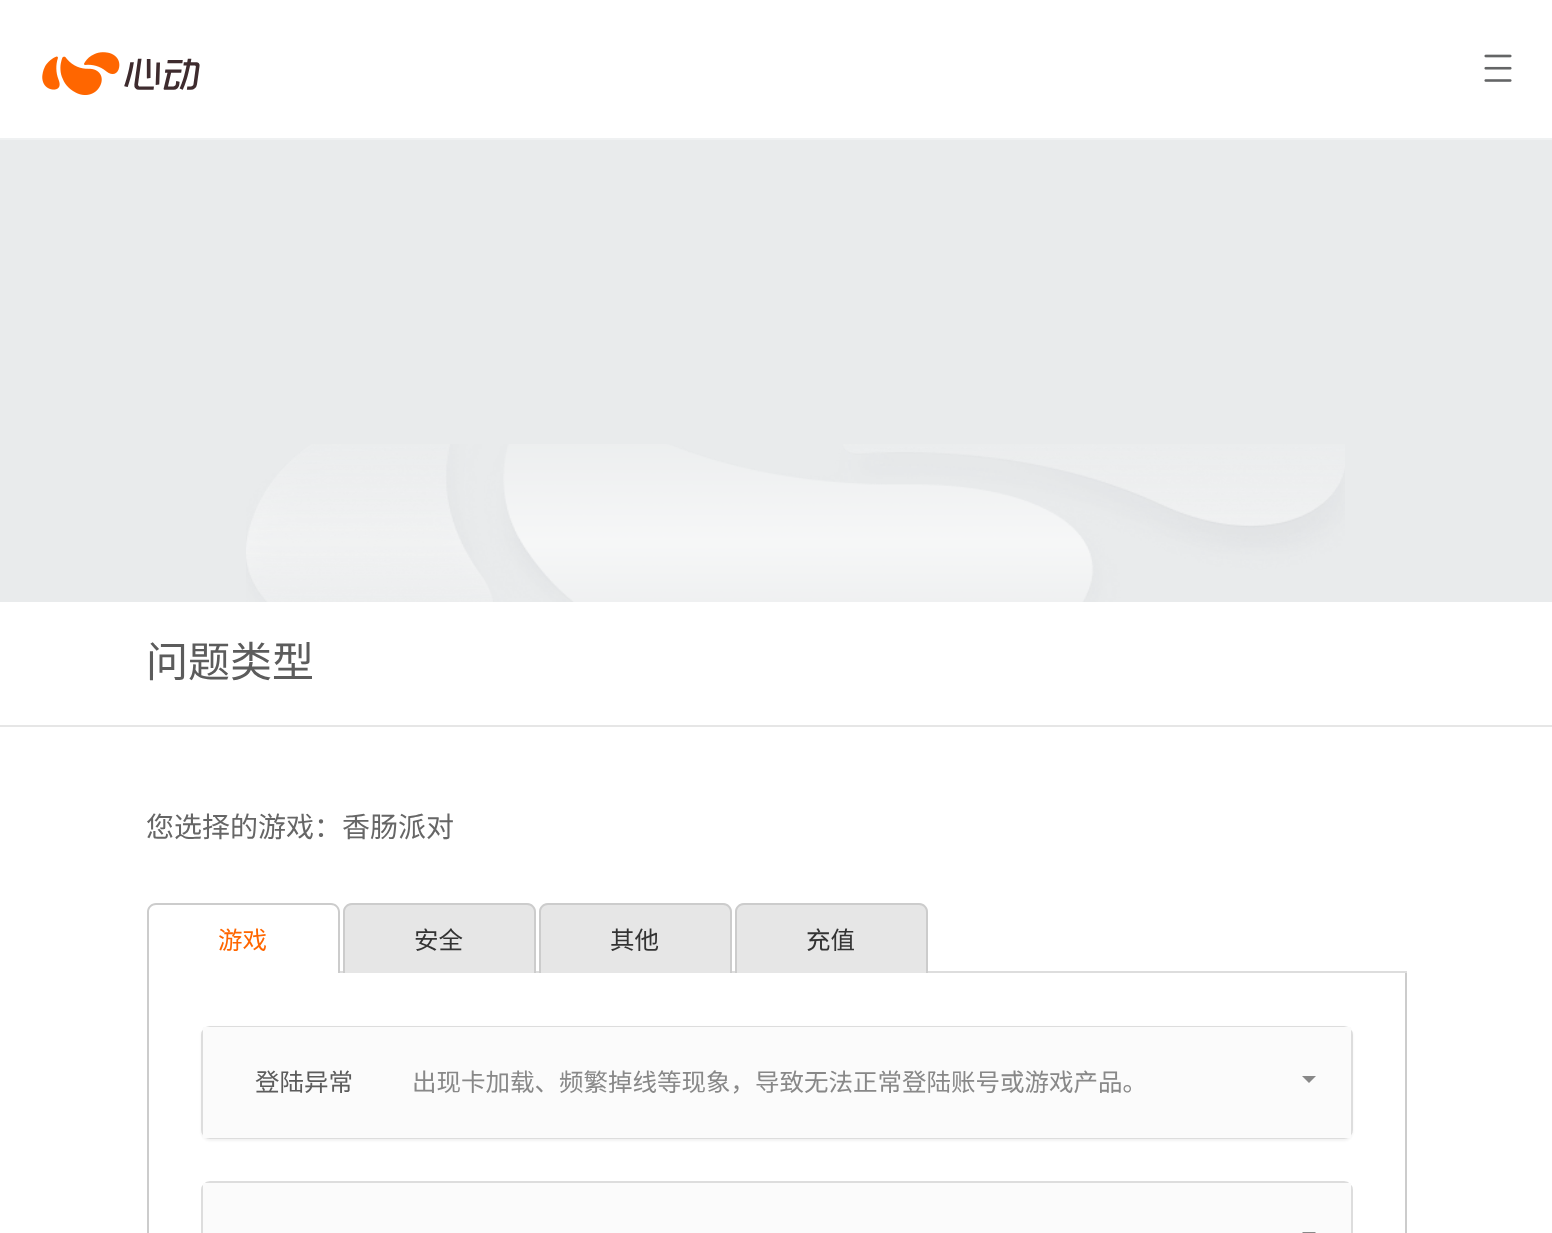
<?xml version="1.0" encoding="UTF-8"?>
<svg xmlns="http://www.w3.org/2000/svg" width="1552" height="1233">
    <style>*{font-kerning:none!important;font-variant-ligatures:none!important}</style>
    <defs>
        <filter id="blur1" x="-50%" y="-200%" width="200%" height="500%"><feGaussianBlur stdDeviation="1"/></filter>
    </defs>
    <rect width="100%" height="100%" fill="#FFFFFF"/>
    <rect x="0" y="138" width="1552" height="2" fill="#EFF1F2"/>
    <image x="42" y="52" width="78" height="43" href="img_01.png"/>
    <text x="42" y="93" font-family="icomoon" font-size="44" fill="#3E2B2E">🗹</text>
    <image x="1484" y="54" width="28" height="28" href="img_02.png"/>
    <rect x="0" y="140" width="1552" height="462" fill="#E9EBEC"/>
    <image x="246" y="444" width="1099" height="158" href="img_03.png"/>
    <rect x="0" y="725" width="1552" height="2" fill="#E6E6E6"/>
    <text x="146" y="677" font-family="Noto Sans CJK SC" font-size="42" fill="#5C5C5C">问题类型</text>
    <text x="146" y="837" font-family="Noto Sans CJK SC" font-size="28" fill="#666666">您选择的游戏：香肠派对</text>
    <rect x="340" y="971" width="1067" height="2" fill="#DDDDDD"/>
    <path d="M 156 903 H 331 C 336 903 340 907 340 912 V 973 H 147 V 912 C 147 907 151 903 156 903 Z M 156 905 H 331 C 335 905 338 908 338 912 V 973 H 149 V 912 C 149 908 152 905 156 905 Z" fill="#CCCCCC" fill-rule="evenodd"/>
    <text x="218" y="949" font-family="Noto Sans CJK SC" font-size="24.5" fill="#FF6600">游戏</text>
    <path d="M 352 903 H 527 C 532 903 536 907 536 912 V 973 H 343 V 912 C 343 907 347 903 352 903 Z" fill="#E6E6E6"/>
    <path d="M 352 903 H 527 C 532 903 536 907 536 912 V 973 H 343 V 912 C 343 907 347 903 352 903 Z M 352 905 H 527 C 531 905 534 908 534 912 V 973 H 345 V 912 C 345 908 348 905 352 905 Z" fill="#CCCCCC" fill-rule="evenodd"/>
    <text x="414" y="949" font-family="Noto Sans CJK SC" font-size="24.5" fill="#333333">安全</text>
    <path d="M 548 903 H 723 C 728 903 732 907 732 912 V 973 H 539 V 912 C 539 907 543 903 548 903 Z" fill="#E6E6E6"/>
    <path d="M 548 903 H 723 C 728 903 732 907 732 912 V 973 H 539 V 912 C 539 907 543 903 548 903 Z M 548 905 H 723 C 727 905 730 908 730 912 V 973 H 541 V 912 C 541 908 544 905 548 905 Z" fill="#CCCCCC" fill-rule="evenodd"/>
    <text x="610" y="949" font-family="Noto Sans CJK SC" font-size="24.5" fill="#333333">其他</text>
    <path d="M 744 903 H 919 C 924 903 928 907 928 912 V 973 H 735 V 912 C 735 907 739 903 744 903 Z" fill="#E6E6E6"/>
    <path d="M 744 903 H 919 C 924 903 928 907 928 912 V 973 H 735 V 912 C 735 907 739 903 744 903 Z M 744 905 H 919 C 923 905 926 908 926 912 V 973 H 737 V 912 C 737 908 740 905 744 905 Z" fill="#CCCCCC" fill-rule="evenodd"/>
    <text x="806" y="949" font-family="Noto Sans CJK SC" font-size="24.5" fill="#333333">充值</text>
    <path d="M 147 973 H 1407 V 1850 C 1407 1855 1403 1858 1398 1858 H 156 C 151 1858 147 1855 147 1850 Z M 149 973 H 1405 V 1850 C 1405 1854 1402 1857 1398 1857 H 156 C 152 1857 149 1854 149 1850 Z" fill="#CCCCCC" fill-rule="evenodd"/>
    <rect x="201" y="1027" width="1152" height="114" rx="9" fill="#000000" fill-opacity="0.05" filter="url(#blur1)"/>
    <rect x="202" y="1027" width="1150" height="111" rx="8" fill="none" stroke="#DDDDDD" stroke-width="2"/>
    <rect x="203" y="1027" width="1148" height="111" fill="#FBFBFB"/>
    <text x="255" y="1091" font-family="Noto Sans CJK SC" font-size="24.5" fill="#5C5C5C">登陆异常</text>
    <text x="412" y="1091" font-family="Noto Sans CJK SC" font-size="24.5" fill="#888888">出现卡加载、频繁掉线等现象，导致无法正常登陆账号或游戏产品。</text>
    <path d="M 1302 1076 H 1316 L 1309 1083 Z" fill="#888888"/>
    <rect x="202" y="1182" width="1150" height="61" rx="8" fill="none" stroke="#DDDDDD" stroke-width="2"/>
    <rect x="203" y="1183" width="1148" height="50" fill="#FBFBFB"/>
    <path d="M 1302 1232 H 1316 L 1309 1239 Z" fill="#888888"/>
</svg>
